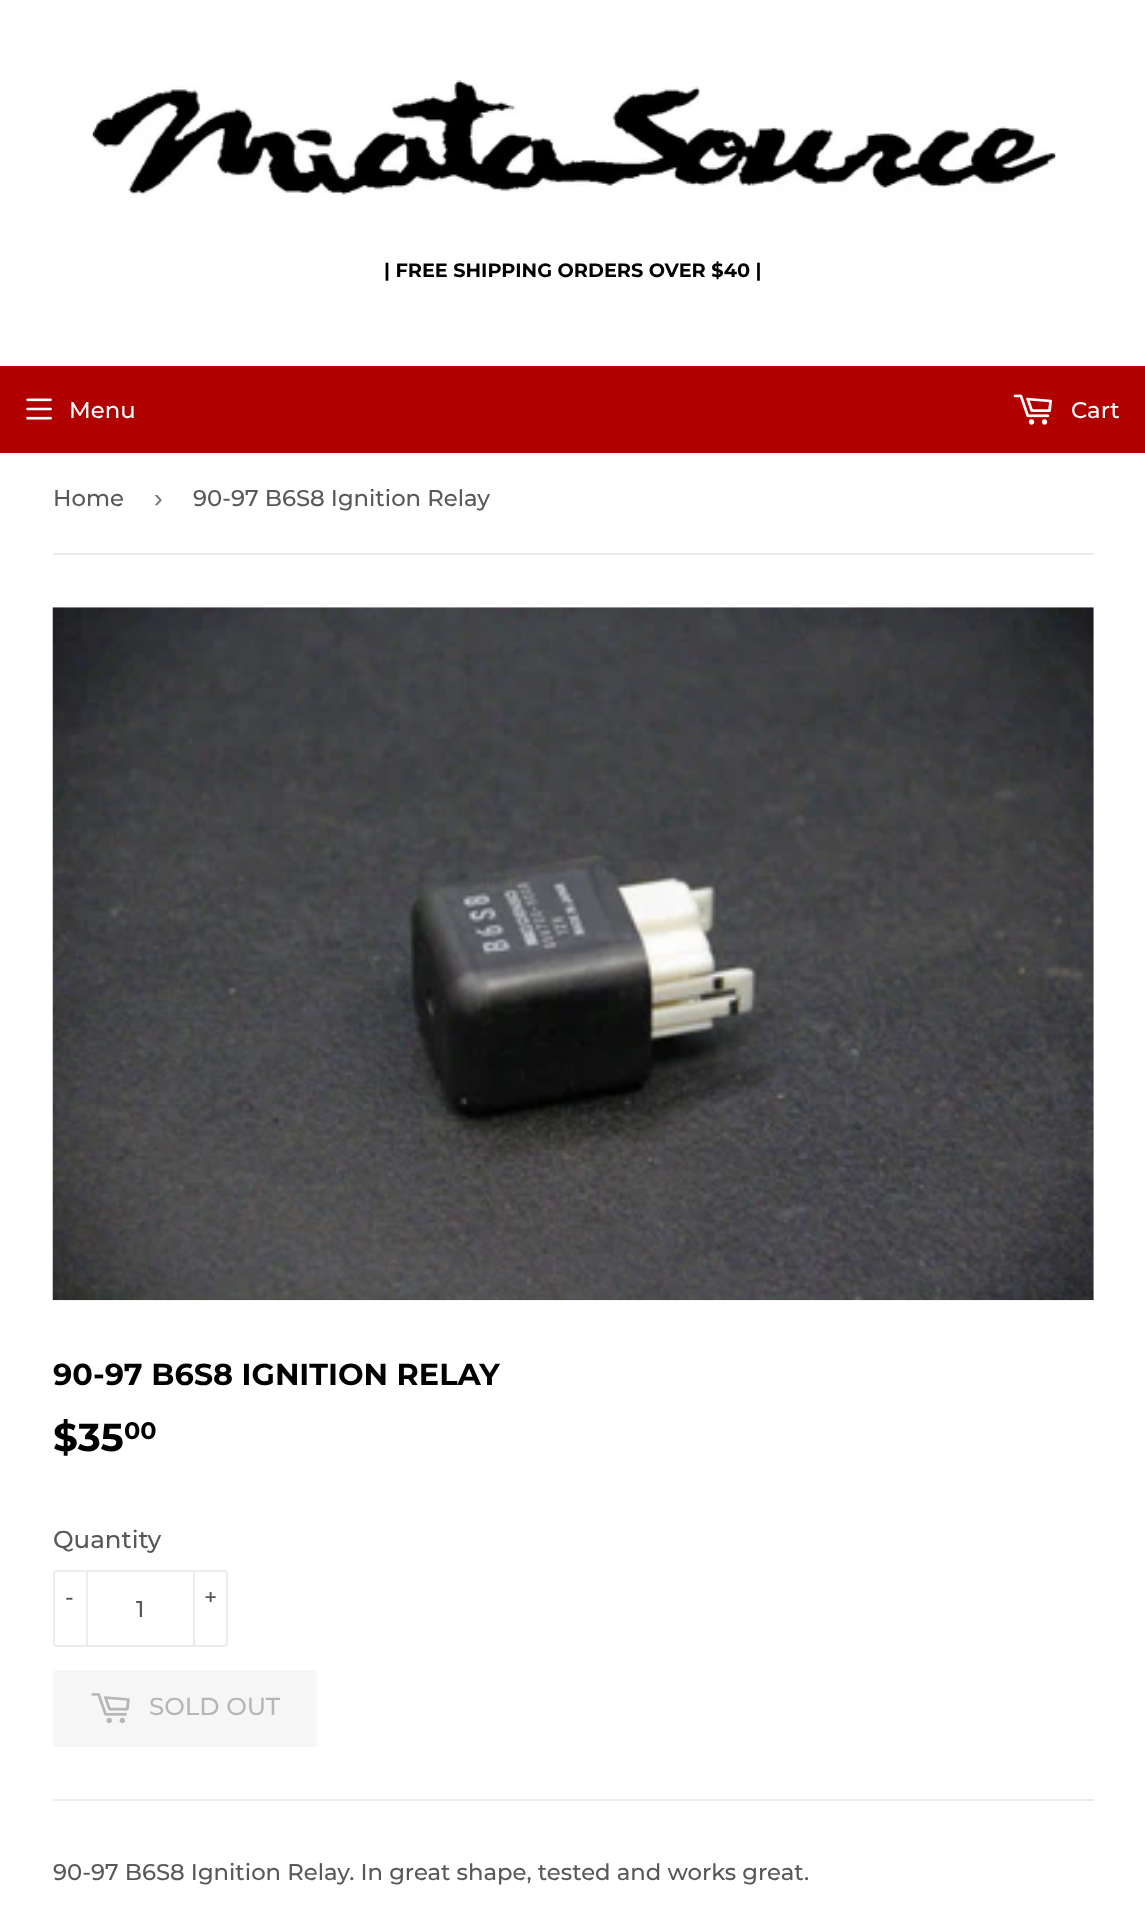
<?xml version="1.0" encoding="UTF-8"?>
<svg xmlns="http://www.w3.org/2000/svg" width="1145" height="1931">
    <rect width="100%" height="100%" fill="#FFFFFF"/>
    <image x="92" y="79" width="964" height="119" href="img_01.png"/>
    <text x="384" y="277" font-family="Montserrat" font-size="19.3" font-weight="700" fill="#000000">| FREE SHIPPING ORDERS OVER $40 |</text>
    <rect x="0" y="366" width="1145" height="87" fill="#B10000"/>
    <image x="26" y="398" width="26" height="22" href="img_02.png"/>
    <text x="69" y="418" font-family="Montserrat" font-size="22.75" font-weight="500" fill="#FFFFFF">Menu</text>
    <image x="1013" y="394" width="39" height="31" href="img_03.png"/>
    <text x="1071" y="418" font-family="Montserrat" font-size="22.75" font-weight="500" fill="#FFFFFF">Cart</text>
    <rect x="53" y="553" width="1041" height="2" fill="#ECECEC"/>
    <text x="53" y="506" font-family="Montserrat" font-size="22.75" font-weight="500" fill="#585858">Home</text>
    <text x="154" y="507" font-family="Liberation Sans" font-size="26" fill="#767676">›</text>
    <text x="193" y="506" font-family="Montserrat" font-size="22.75" font-weight="500" fill="#585858">90-97 B6S8 Ignition Relay</text>
    <image x="52" y="607" width="1042" height="694" href="img_04.png"/>
    <text x="53" y="1385" font-family="Montserrat" font-size="30.3" font-weight="700" fill="#000000">90-97 B6S8 IGNITION RELAY</text>
    <text x="53" y="1451" font-family="Montserrat" font-size="39" font-weight="700" fill="#000000">$35</text>
    <text x="124" y="1439" font-family="Montserrat" font-size="24" font-weight="700" fill="#000000">00</text>
    <text x="53" y="1548" font-family="Montserrat" font-size="24.5" font-weight="500" fill="#585858">Quantity</text>
    <rect x="54" y="1571" width="173" height="75" rx="3" fill="none" stroke="#ECECEC" stroke-width="2"/>
    <rect x="86" y="1570" width="2" height="77" fill="#ECECEC"/>
    <text x="65" y="1605" font-family="Montserrat" font-size="22.75" font-weight="500" fill="#585858">-</text>
    <rect x="193" y="1570" width="2" height="77" fill="#ECECEC"/>
    <text x="204" y="1605" font-family="Montserrat" font-size="22.75" font-weight="500" fill="#585858">+</text>
    <text x="136" y="1617" font-family="Montserrat" font-size="22.75" font-weight="500" fill="#585858">1</text>
    <rect x="53" y="1670" width="264" height="77" rx="4" fill="#F6F6F6"/>
    <image x="91" y="1693" width="39" height="31" href="img_05.png"/>
    <text x="149" y="1715" font-family="Montserrat" font-size="24.5" font-weight="500" fill="#B6B6B6">SOLD OUT</text>
    <rect x="53" y="1799" width="1041" height="2" fill="#ECECEC"/>
    <text x="53" y="1880" font-family="Montserrat" font-size="22.75" font-weight="500" fill="#585858">90-97 B6S8 Ignition Relay. In great shape, tested and works great.</text>
</svg>
